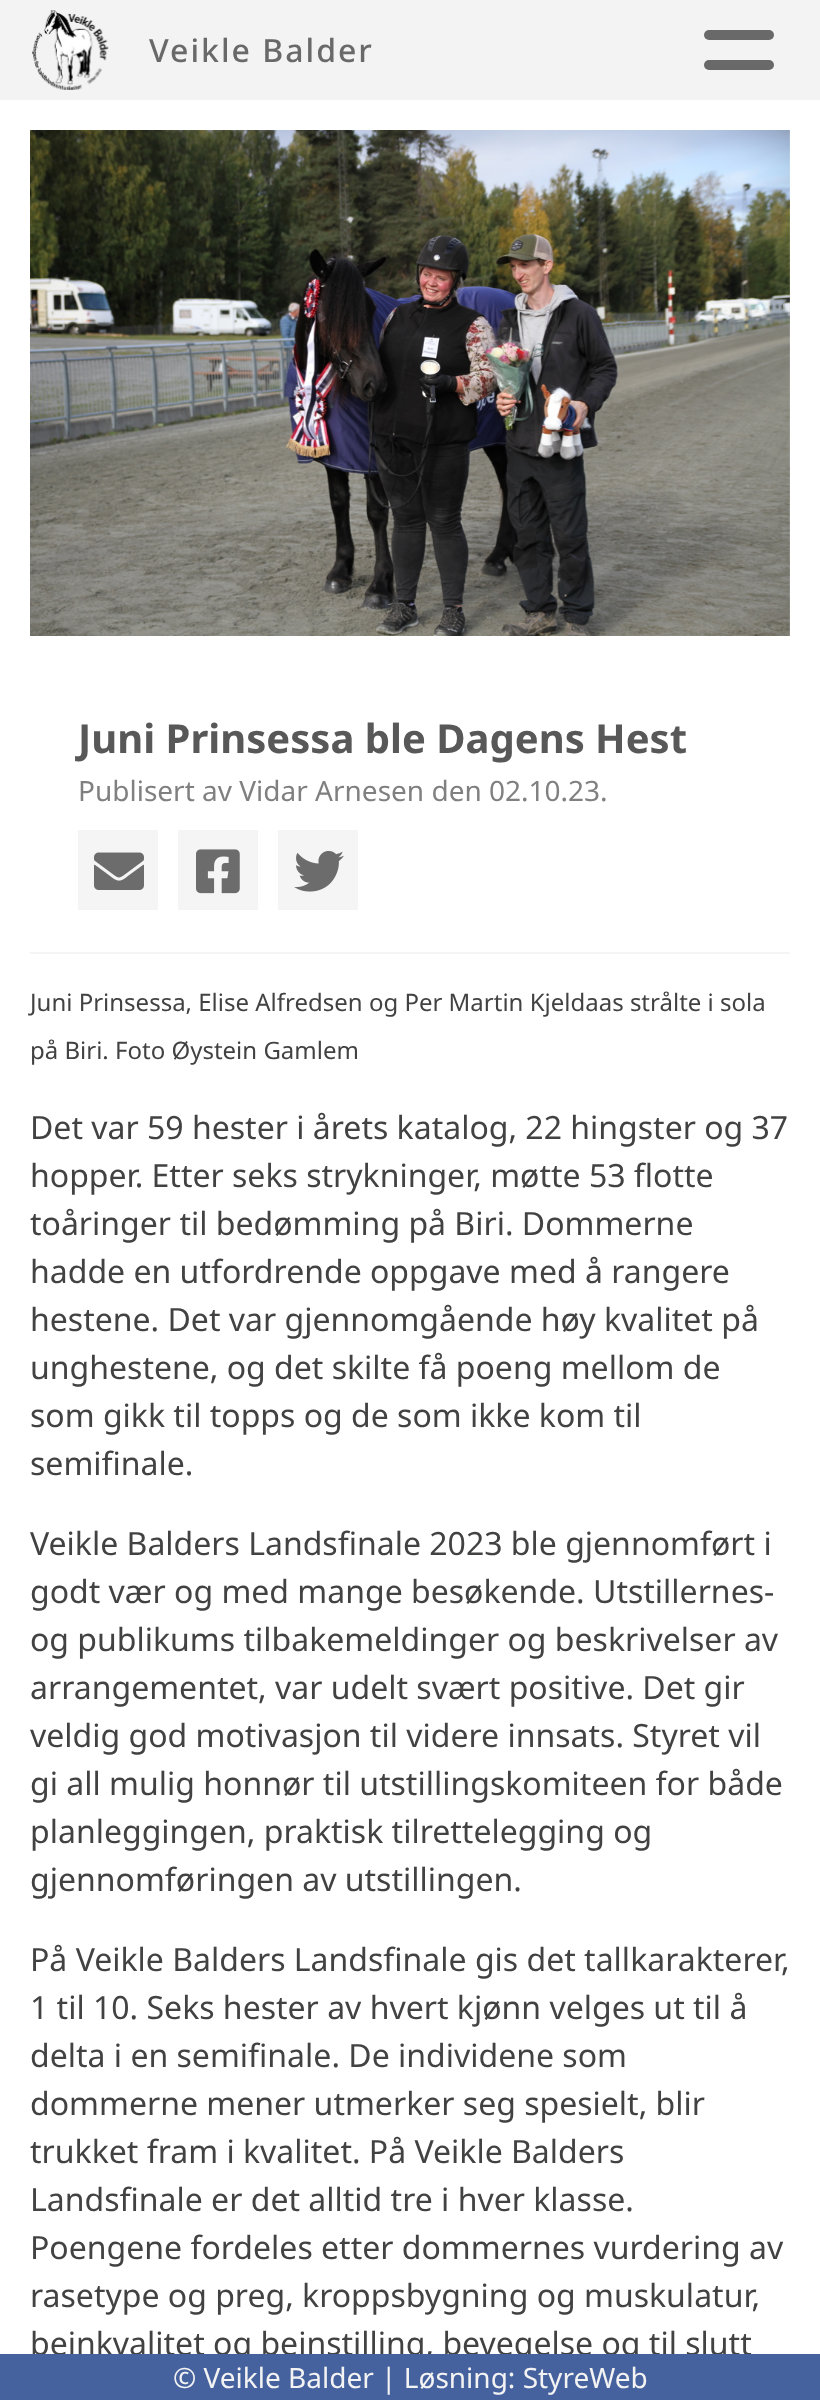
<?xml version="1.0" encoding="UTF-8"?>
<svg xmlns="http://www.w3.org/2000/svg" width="820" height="2400">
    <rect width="100%" height="100%" fill="#FFFFFF"/>
    <rect x="0" y="0" width="820" height="100" fill="#F3F3F3"/>
    <image x="32" y="10" width="77" height="80" href="img_01.png"/>
    <text x="149" y="62" font-family="Noto Sans" font-size="32" font-weight="500" letter-spacing="2" fill="#696969">Veikle Balder</text>
    <rect x="704" y="30" width="70" height="10" rx="5" fill="#696969"/>
    <rect x="704" y="60" width="70" height="10" rx="5" fill="#696969"/>
    <image x="30" y="130" width="760" height="506" href="img_02.png"/>
    <rect x="30" y="952" width="760" height="2" fill="#F5F5F5"/>
    <text x="78" y="753" font-family="Noto Sans" font-size="40" font-weight="700" fill="#585858">Juni Prinsessa ble Dagens Hest</text>
    <text x="78" y="801" font-family="Noto Sans" font-size="28" fill="#808080">Publisert av Vidar Arnesen den 02.10.23.</text>
    <rect x="78" y="830" width="80" height="80" fill="#F5F5F5"/>
    <image x="94" y="852" width="50" height="38" href="img_03.png"/>
    <rect x="178" y="830" width="80" height="80" fill="#F5F5F5"/>
    <image x="196" y="849" width="44" height="45" href="img_04.png"/>
    <rect x="278" y="830" width="80" height="80" fill="#F5F5F5"/>
    <image x="294" y="850" width="50" height="42" href="img_05.png"/>
    <text x="30" y="1011" font-family="Noto Sans" font-size="24" fill="#424242">Juni Prinsessa, Elise Alfredsen og Per Martin Kjeldaas strålte i sola</text>
    <text x="30" y="1059" font-family="Noto Sans" font-size="24" fill="#424242">på Biri. Foto Øystein Gamlem</text>
    <text font-family="Noto Sans" font-size="32" fill="#424242">
        <tspan x="30" y="1139">Det var 59 hester i årets katalog, 22 hingster og 37</tspan>
        <tspan x="30" y="1187">hopper. Etter seks strykninger, møtte 53 flotte</tspan>
        <tspan x="30" y="1235">toåringer til bedømming på Biri. Dommerne</tspan>
        <tspan x="30" y="1283">hadde en utfordrende oppgave med å rangere</tspan>
        <tspan x="30" y="1331">hestene. Det var gjennomgående høy kvalitet på</tspan>
        <tspan x="30" y="1379">unghestene, og det skilte få poeng mellom de</tspan>
        <tspan x="30" y="1427">som gikk til topps og de som ikke kom til</tspan>
        <tspan x="30" y="1475">semifinale.</tspan>
    </text>
    <text font-family="Noto Sans" font-size="32" fill="#424242">
        <tspan x="30" y="1555">Veikle Balders Landsfinale 2023 ble gjennomført i</tspan>
        <tspan x="30" y="1603">godt vær og med mange besøkende. Utstillernes-</tspan>
        <tspan x="30" y="1651">og publikums tilbakemeldinger og beskrivelser av</tspan>
        <tspan x="30" y="1699">arrangementet, var udelt svært positive. Det gir</tspan>
        <tspan x="30" y="1747">veldig god motivasjon til videre innsats. Styret vil</tspan>
        <tspan x="30" y="1795">gi all mulig honnør til utstillingskomiteen for både</tspan>
        <tspan x="30" y="1843">planleggingen, praktisk tilrettelegging og</tspan>
        <tspan x="30" y="1891">gjennomføringen av utstillingen.</tspan>
    </text>
    <text font-family="Noto Sans" font-size="32" fill="#424242">
        <tspan x="30" y="1971">På Veikle Balders Landsfinale gis det tallkarakterer,</tspan>
        <tspan x="30" y="2019">1 til 10. Seks hester av hvert kjønn velges ut til å</tspan>
        <tspan x="30" y="2067">delta i en semifinale. De individene som</tspan>
        <tspan x="30" y="2115">dommerne mener utmerker seg spesielt, blir</tspan>
        <tspan x="30" y="2163">trukket fram i kvalitet. På Veikle Balders</tspan>
        <tspan x="30" y="2211">Landsfinale er det alltid tre i hver klasse.</tspan>
        <tspan x="30" y="2259">Poengene fordeles etter dommernes vurdering av</tspan>
        <tspan x="30" y="2307">rasetype og preg, kroppsbygning og muskulatur,</tspan>
        <tspan x="30" y="2355">beinkvalitet og beinstilling, bevegelse og til slutt</tspan>
    </text>
    <rect x="0" y="2354" width="820" height="46" fill="#46629E"/>
    <text x="173" y="2388" font-family="Noto Sans" font-size="28" fill="#F3F3F3">© Veikle Balder | Løsning: StyreWeb</text>
</svg>
